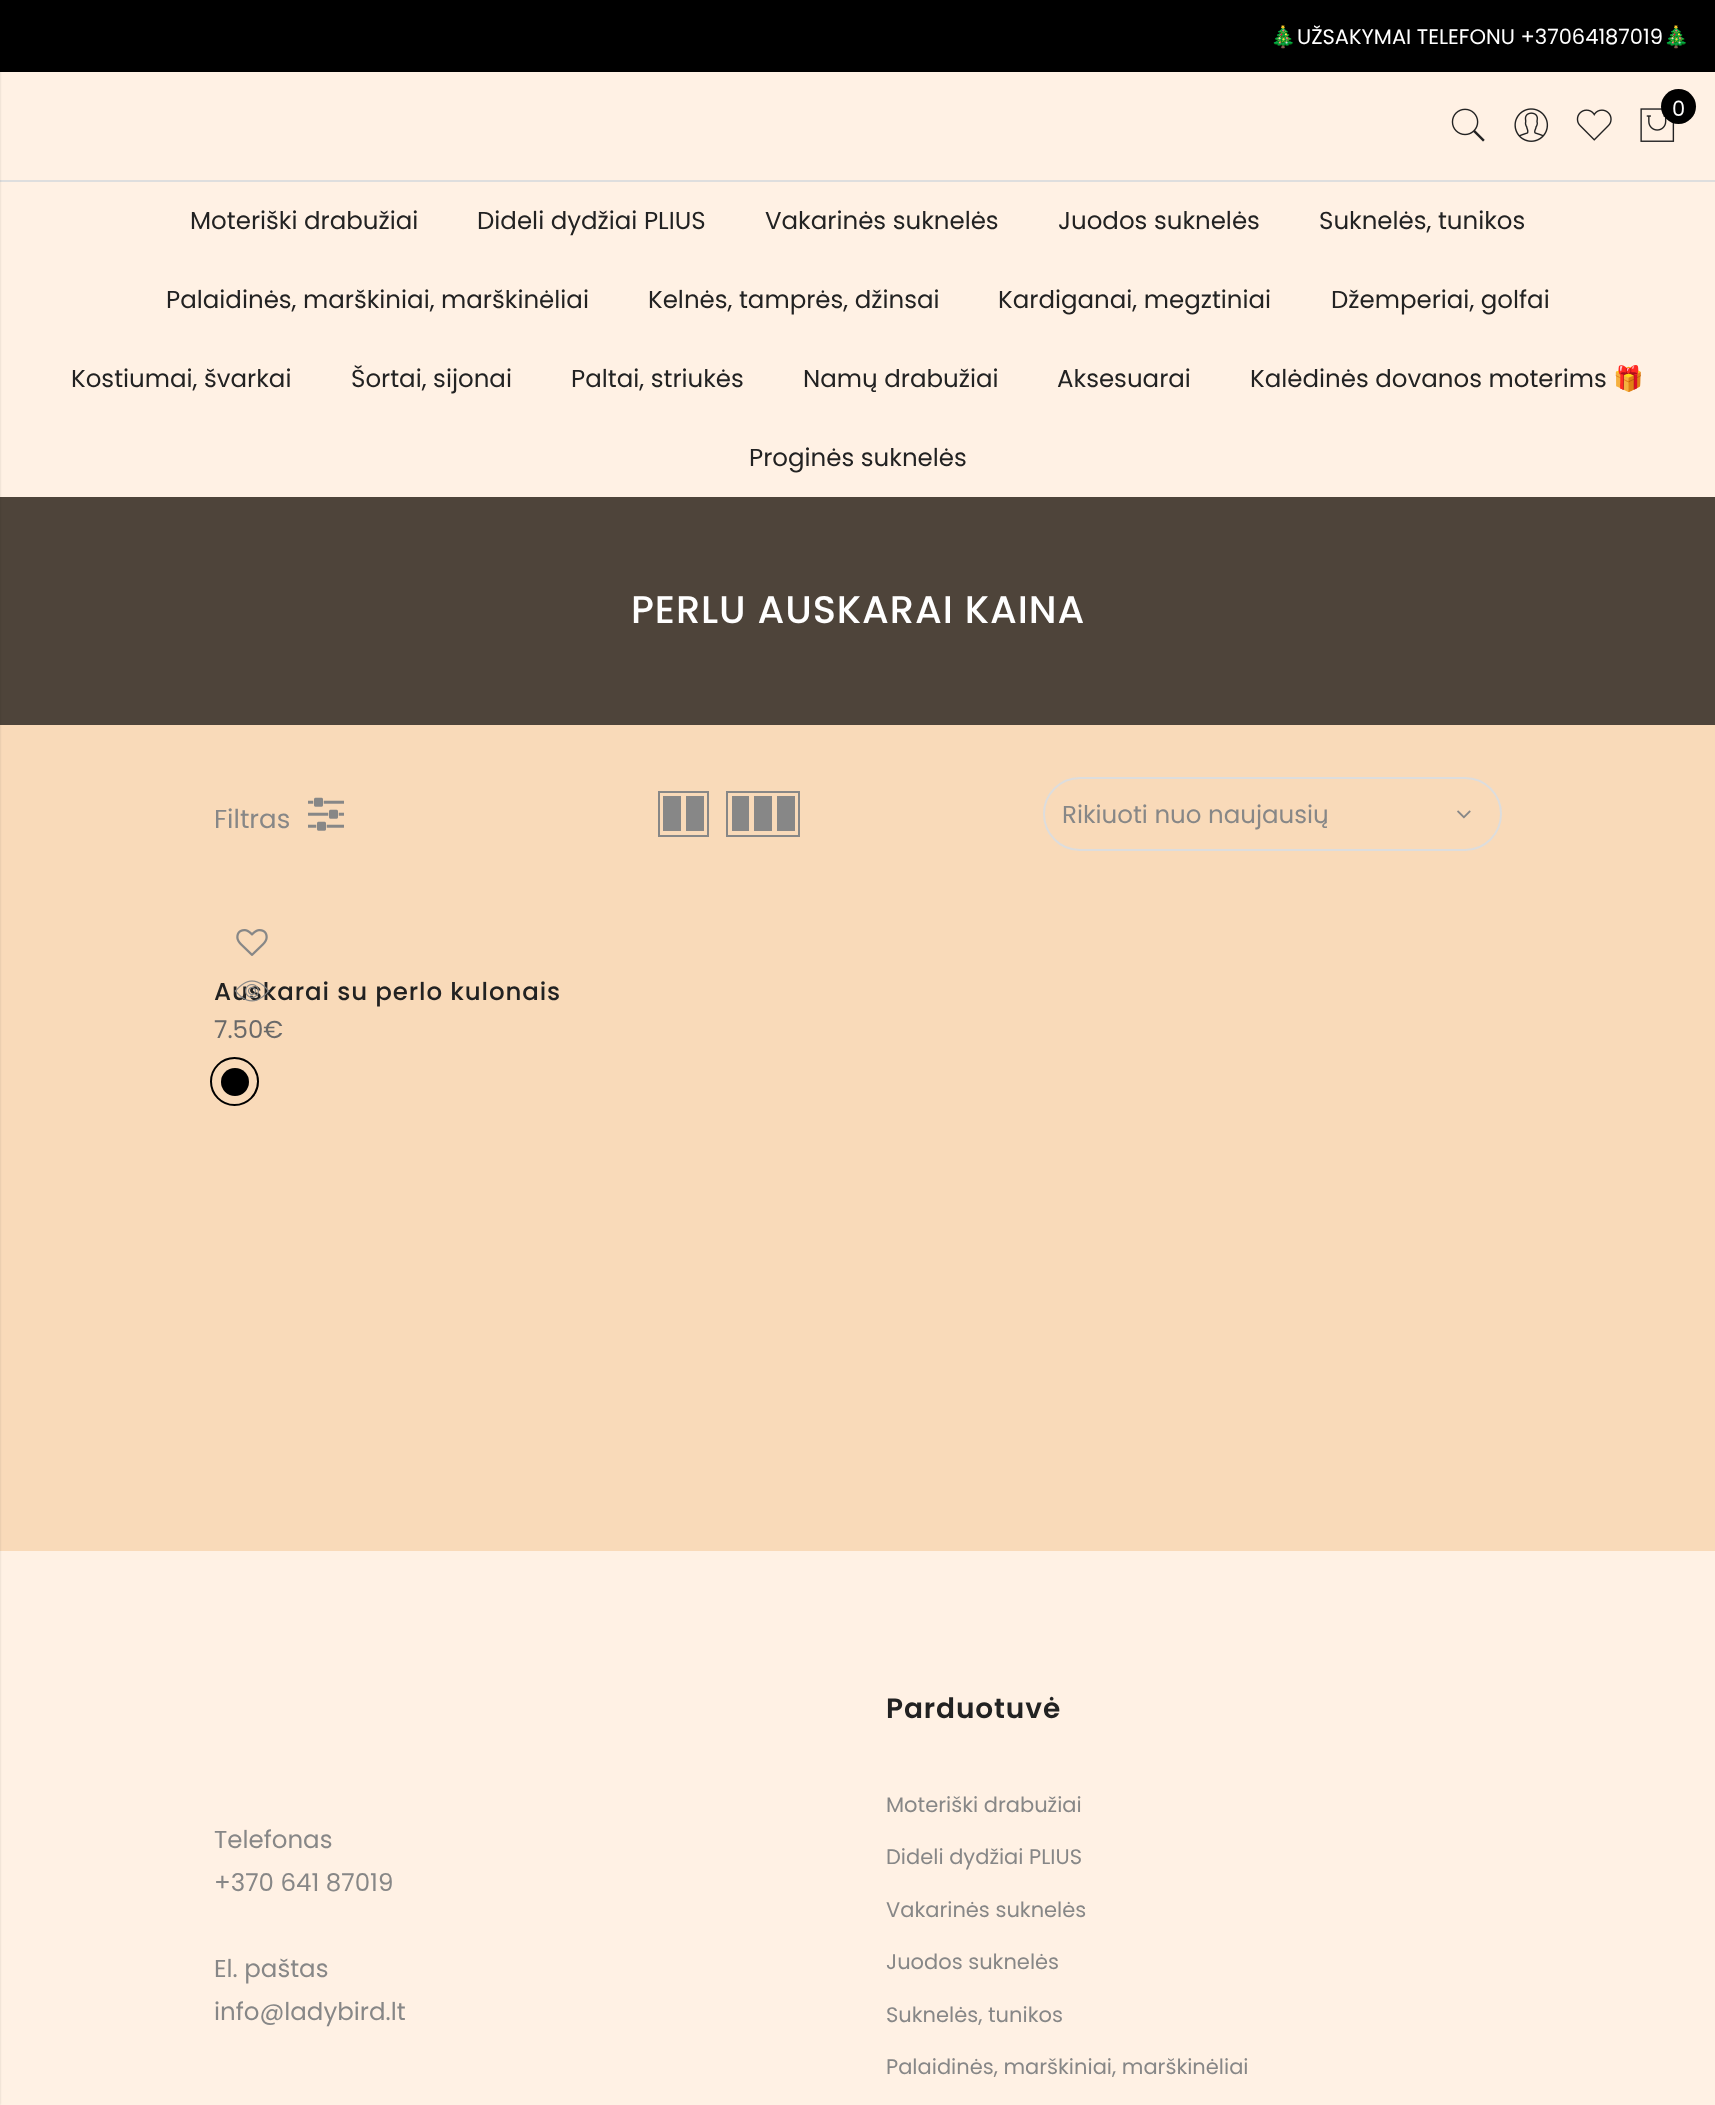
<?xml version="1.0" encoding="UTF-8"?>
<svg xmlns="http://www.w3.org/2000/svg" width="1715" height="2105">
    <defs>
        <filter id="blur1" x="-50%" y="-200%" width="200%" height="500%"><feGaussianBlur stdDeviation="1"/></filter>
    </defs>
    <rect width="100%" height="100%" fill="#F9DAB9"/>
    <rect x="0" y="72" width="1715" height="108" fill="#FFF1E4"/>
    <rect x="0" y="0" width="1715" height="72" fill="#000000"/>
    <text x="1270" y="44" font-family="Noto Color Emoji" font-size="21" fill="#FFFFFF">🎄</text>
    <text x="1297" y="44" font-family="Poppins" font-size="21" fill="#FFFFFF">UŽSAKYMAI TELEFONU +37064187019</text>
    <text x="1663" y="44" font-family="Noto Color Emoji" font-size="21" fill="#FFFFFF">🎄</text>
    <image x="1451" y="108" width="34" height="34" href="img_01.png"/>
    <image x="1514" y="108" width="35" height="34" href="img_02.png"/>
    <image x="1576" y="109" width="36" height="32" href="img_03.png"/>
    <image x="1640" y="108" width="35" height="34" href="img_04.png"/>
    <circle cx="1678.5" cy="106.5" r="17.5" fill="#000000"/>
    <text x="1672" y="116" font-family="Poppins" font-size="21" fill="#FFFFFF">0</text>
    <rect x="0" y="182" width="1715" height="315" fill="#FFF1E4"/>
    <rect x="0" y="180" width="1715" height="2" fill="#DEDEDE"/>
    <text x="190" y="229" font-family="Poppins" font-size="24.5" fill="#222222">Moteriški drabužiai</text>
    <text x="477" y="229" font-family="Poppins" font-size="24.5" fill="#222222">Dideli dydžiai PLIUS</text>
    <text x="765" y="229" font-family="Poppins" font-size="24.5" fill="#222222">Vakarinės suknelės</text>
    <text x="1058" y="229" font-family="Poppins" font-size="24.5" fill="#222222">Juodos suknelės</text>
    <text x="1319" y="229" font-family="Poppins" font-size="24.5" fill="#222222">Suknelės, tunikos</text>
    <text x="166" y="308" font-family="Poppins" font-size="24.5" fill="#222222">Palaidinės, marškiniai, marškinėliai</text>
    <text x="648" y="308" font-family="Poppins" font-size="24.5" fill="#222222">Kelnės, tamprės, džinsai</text>
    <text x="998" y="308" font-family="Poppins" font-size="24.5" fill="#222222">Kardiganai, megztiniai</text>
    <text x="1331" y="308" font-family="Poppins" font-size="24.5" fill="#222222">Džemperiai, golfai</text>
    <text x="71" y="387" font-family="Poppins" font-size="24.5" fill="#222222">Kostiumai, švarkai</text>
    <text x="351" y="387" font-family="Poppins" font-size="24.5" fill="#222222">Šortai, sijonai</text>
    <text x="571" y="387" font-family="Poppins" font-size="24.5" fill="#222222">Paltai, striukės</text>
    <text x="803" y="387" font-family="Poppins" font-size="24.5" fill="#222222">Namų drabužiai</text>
    <text x="1057" y="387" font-family="Poppins" font-size="24.5" fill="#222222">Aksesuarai</text>
    <text x="1250" y="387" font-family="Poppins" font-size="24.5" fill="#222222">Kalėdinės dovanos moterims</text>
    <text x="1613" y="387" font-family="'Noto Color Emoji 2'" font-size="24.5" fill="#222222">🎁</text>
    <text x="749" y="466" font-family="Poppins" font-size="24.5" fill="#222222">Proginės suknelės</text>
    <rect x="0" y="497" width="1715" height="228" fill="#4E443A"/>
    <text x="631" y="623" font-family="Poppins" font-size="38.5" font-weight="500" letter-spacing="0.9" fill="#FFFFFF">PERLU AUSKARAI KAINA</text>
    <rect x="0" y="1551" width="1715" height="554" fill="#FFF1E4"/>
    <rect x="-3" y="0" width="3" height="2105" fill="#000000" fill-opacity="0.15" filter="url(#blur1)"/>
    <text x="214" y="828" font-family="Poppins" font-size="26" fill="#878787">Filtras</text>
    <image x="308" y="797" width="36" height="34" href="img_05.png"/>
    <rect x="659" y="792" width="49" height="44" fill="none" stroke="#878787" stroke-width="2"/>
    <rect x="686" y="796" width="18" height="35" fill="#878787"/>
    <rect x="663" y="796" width="18" height="35" fill="#878787"/>
    <rect x="727" y="792" width="72" height="44" fill="none" stroke="#878787" stroke-width="2"/>
    <rect x="777" y="796" width="18" height="35" fill="#878787"/>
    <rect x="754" y="796" width="18" height="35" fill="#878787"/>
    <rect x="732" y="796" width="17" height="35" fill="#878787"/>
    <rect x="1044" y="778" width="457" height="72" rx="36" fill="none" stroke="#DDDDDD" stroke-width="2"/>
    <text x="1062" y="823" font-family="Poppins" font-size="24.5" fill="#878787">Rikiuoti nuo naujausių</text>
    <image x="1457" y="810" width="14" height="9" href="img_06.png"/>
    <image x="236" y="929" width="32" height="27" href="img_07.png"/>
    <text x="214" y="1000" font-family="Poppins" font-size="24.5" font-weight="500" letter-spacing="0.9" fill="#222222">Auskarai su perlo kulonais</text>
    <image x="234" y="980" width="36" height="22" href="img_08.png"/>
    <text x="214" y="1038" font-family="Poppins" font-size="24.5" fill="#696969">7.50€</text>
    <circle cx="234.5" cy="1081.5" r="23.5" fill="none" stroke="#000000" stroke-width="2"/>
    <circle cx="235" cy="1082" r="14" fill="#000000"/>
    <text font-family="Poppins" font-size="24.5" fill="#878787">
        <tspan x="214" y="1848">Telefonas</tspan>
        <tspan x="214" y="1891">+370 641 87019</tspan>
    </text>
    <text font-family="Poppins" font-size="24.5" fill="#878787">
        <tspan x="214" y="1977">El. paštas</tspan>
        <tspan x="214" y="2020">info@ladybird.lt</tspan>
    </text>
    <text x="886" y="1718" font-family="Poppins" font-size="28" font-weight="600" letter-spacing="0.9" fill="#222222">Parduotuvė</text>
    <text x="886" y="1812" font-family="Poppins" font-size="21" fill="#878787">Moteriški drabužiai</text>
    <text x="886" y="1864" font-family="Poppins" font-size="21" fill="#878787">Dideli dydžiai PLIUS</text>
    <text x="886" y="1917" font-family="Poppins" font-size="21" fill="#878787">Vakarinės suknelės</text>
    <text x="886" y="1969" font-family="Poppins" font-size="21" fill="#878787">Juodos suknelės</text>
    <text x="886" y="2022" font-family="Poppins" font-size="21" fill="#878787">Suknelės, tunikos</text>
    <text x="886" y="2074" font-family="Poppins" font-size="21" fill="#878787">Palaidinės, marškiniai, marškinėliai</text>
</svg>
